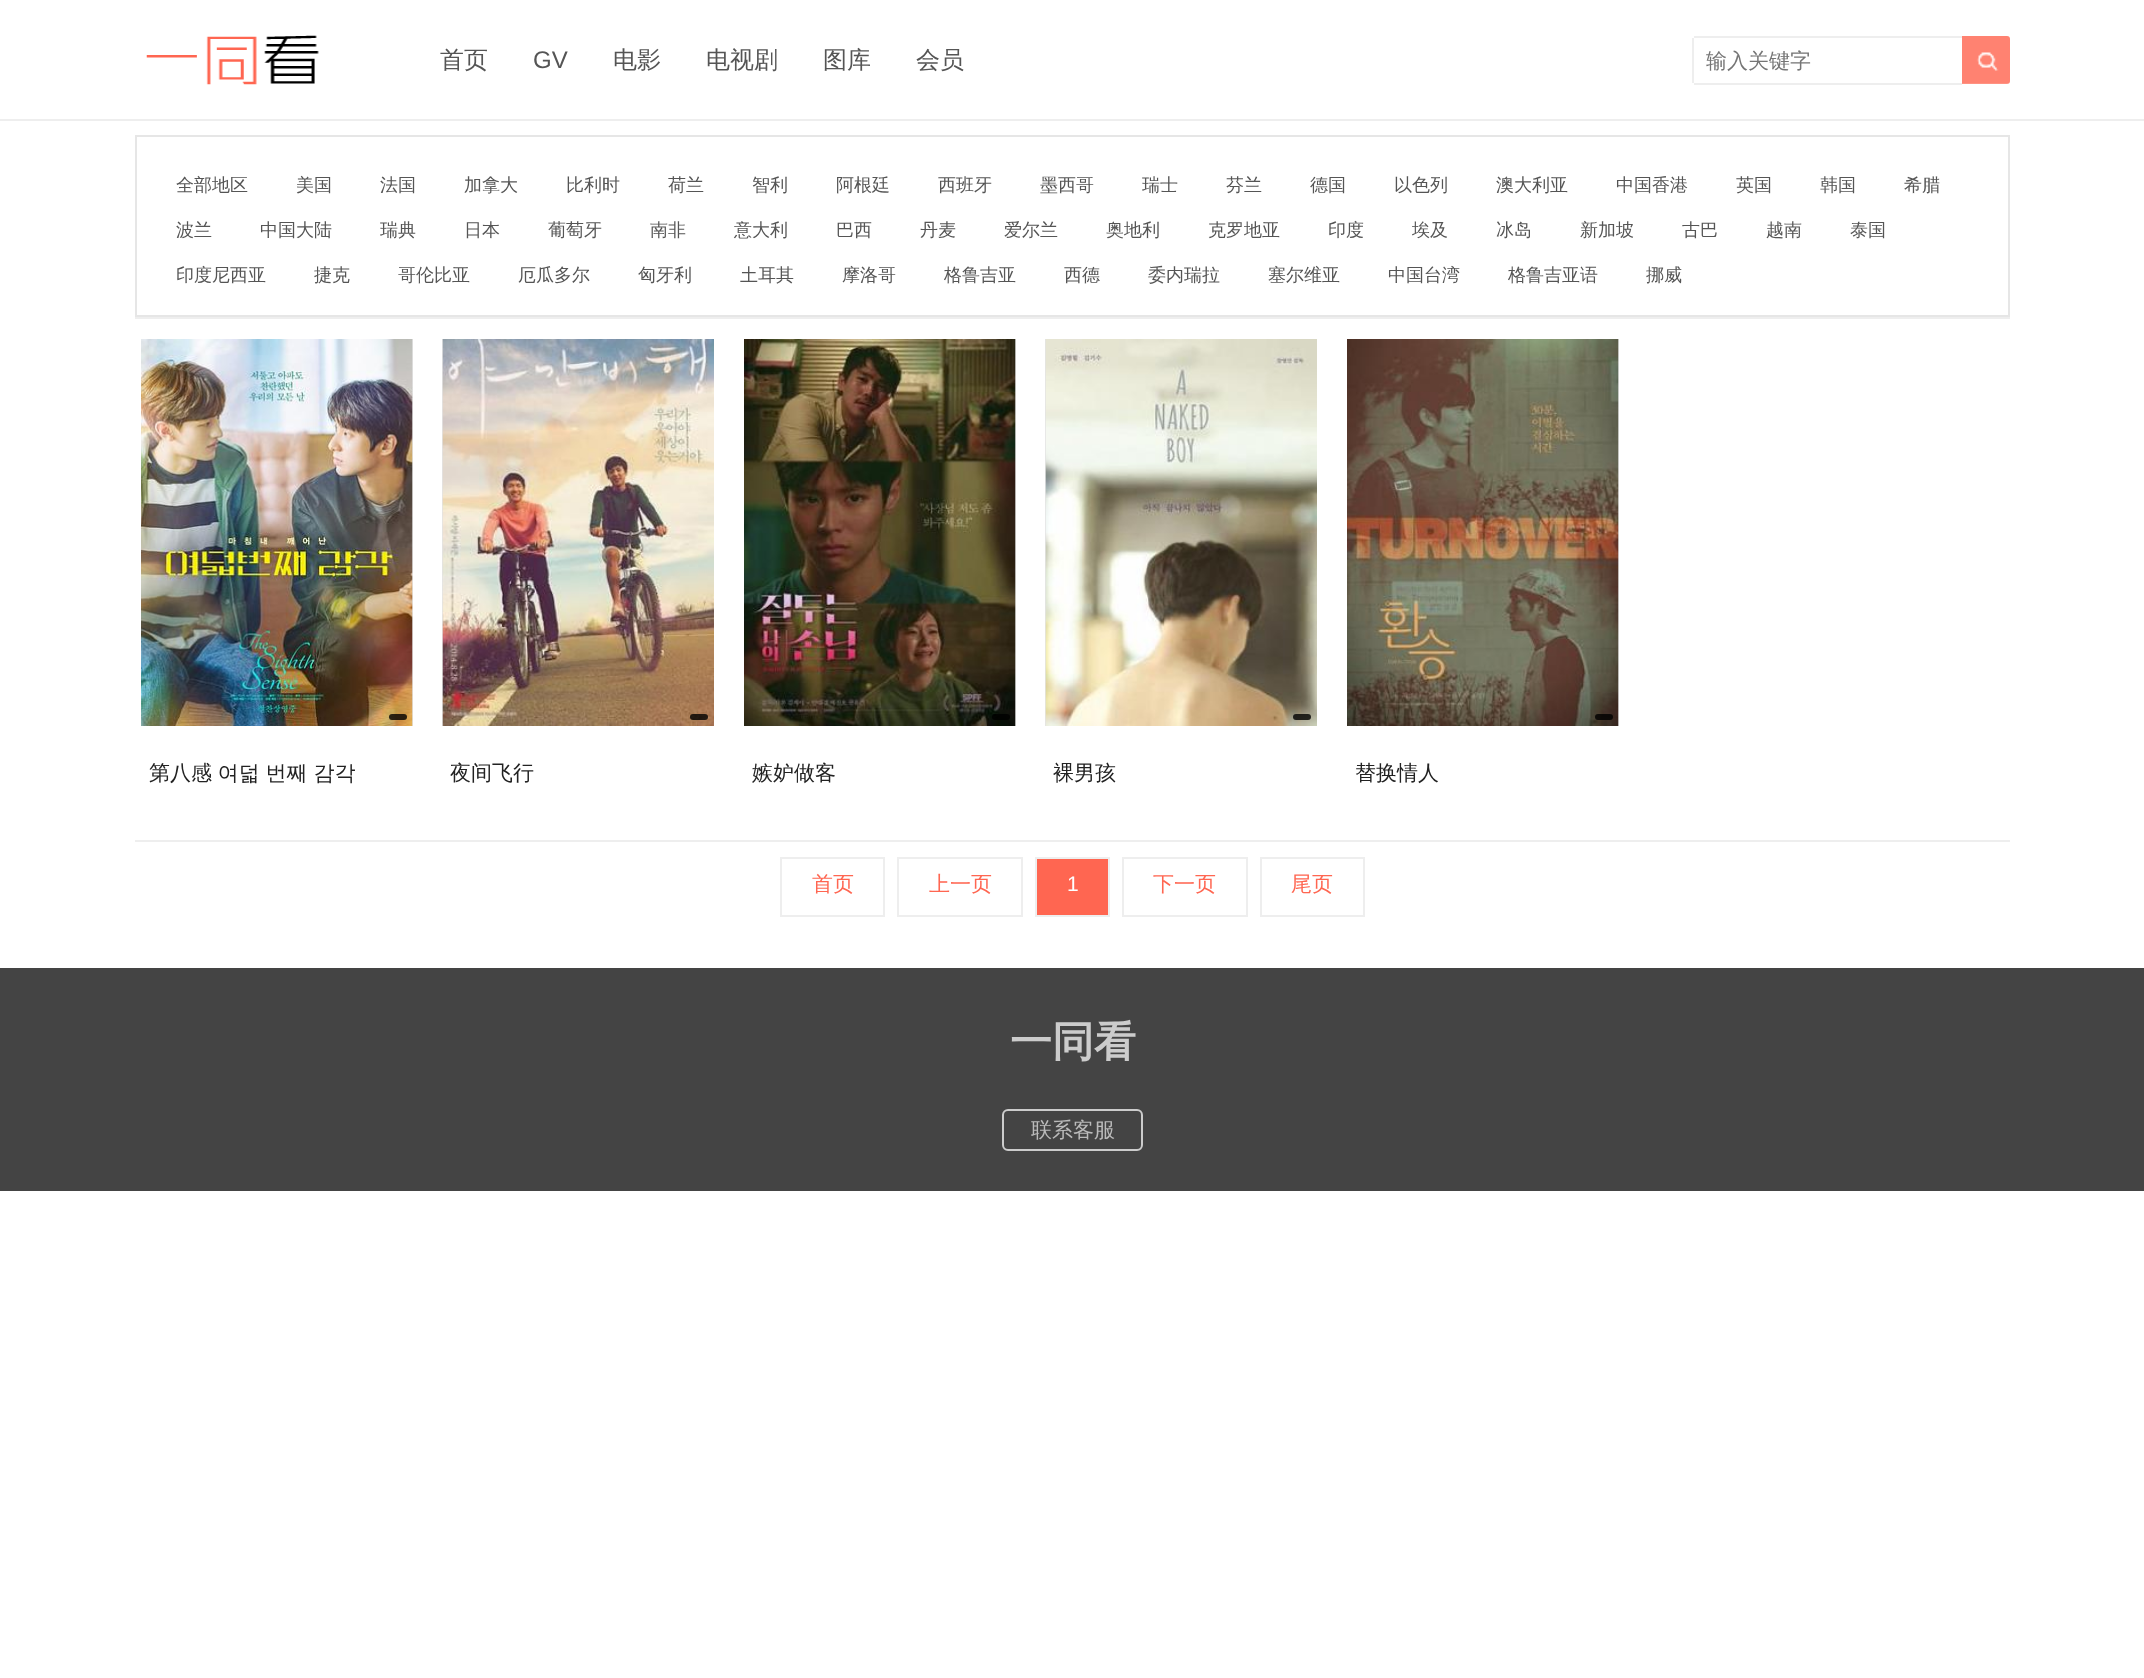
<?xml version="1.0" encoding="UTF-8"?>
<svg xmlns="http://www.w3.org/2000/svg" width="2144" height="1678">
    <defs>
        <clipPath id="clip1"><rect x="1706" y="48" width="244" height="27"/></clipPath>
    </defs>
    <rect width="100%" height="100%" fill="#FFFFFF"/>
    <rect x="0" y="119" width="2144" height="2" fill="#EEEEEE"/>
    <image x="146" y="35" width="173" height="50" href="img_01.png"/>
    <text x="440" y="68" font-family="WenQuanYi Zen Hei" font-size="24" font-weight="500" fill="#555555">首页</text>
    <text x="533" y="68" font-family="Liberation Sans" font-size="24" fill="#555555">GV</text>
    <text x="613" y="68" font-family="WenQuanYi Zen Hei" font-size="24" font-weight="500" fill="#555555">电影</text>
    <text x="706" y="68" font-family="WenQuanYi Zen Hei" font-size="24" font-weight="500" fill="#555555">电视剧</text>
    <text x="823" y="68" font-family="WenQuanYi Zen Hei" font-size="24" font-weight="500" fill="#555555">图库</text>
    <text x="916" y="68" font-family="WenQuanYi Zen Hei" font-size="24" font-weight="500" fill="#555555">会员</text>
    <rect x="1694" y="36" width="268" height="2" fill="#EEEEEE"/>
    <rect x="1694" y="83" width="268" height="2" fill="#EEEEEE"/>
    <rect x="1692" y="38" width="2" height="45" fill="#EEEEEE"/>
    <g clip-path="url(#clip1)">
        <text x="1706" y="68" font-family="WenQuanYi Zen Hei" font-size="21" font-weight="500" fill="#757575">输入关键字</text>
    </g>
    <image x="1962" y="36" width="48" height="48" href="img_02.png"/>
    <rect x="136" y="136" width="1873" height="180" fill="none" stroke="#E6E6E6" stroke-width="2"/>
    <text x="176" y="191" font-family="WenQuanYi Zen Hei" font-size="18" font-weight="500" fill="#555555">全部地区</text>
    <text x="296" y="191" font-family="WenQuanYi Zen Hei" font-size="18" font-weight="500" fill="#555555">美国</text>
    <text x="380" y="191" font-family="WenQuanYi Zen Hei" font-size="18" font-weight="500" fill="#555555">法国</text>
    <text x="464" y="191" font-family="WenQuanYi Zen Hei" font-size="18" font-weight="500" fill="#555555">加拿大</text>
    <text x="566" y="191" font-family="WenQuanYi Zen Hei" font-size="18" font-weight="500" fill="#555555">比利时</text>
    <text x="668" y="191" font-family="WenQuanYi Zen Hei" font-size="18" font-weight="500" fill="#555555">荷兰</text>
    <text x="752" y="191" font-family="WenQuanYi Zen Hei" font-size="18" font-weight="500" fill="#555555">智利</text>
    <text x="836" y="191" font-family="WenQuanYi Zen Hei" font-size="18" font-weight="500" fill="#555555">阿根廷</text>
    <text x="938" y="191" font-family="WenQuanYi Zen Hei" font-size="18" font-weight="500" fill="#555555">西班牙</text>
    <text x="1040" y="191" font-family="WenQuanYi Zen Hei" font-size="18" font-weight="500" fill="#555555">墨西哥</text>
    <text x="1142" y="191" font-family="WenQuanYi Zen Hei" font-size="18" font-weight="500" fill="#555555">瑞士</text>
    <text x="1226" y="191" font-family="WenQuanYi Zen Hei" font-size="18" font-weight="500" fill="#555555">芬兰</text>
    <text x="1310" y="191" font-family="WenQuanYi Zen Hei" font-size="18" font-weight="500" fill="#555555">德国</text>
    <text x="1394" y="191" font-family="WenQuanYi Zen Hei" font-size="18" font-weight="500" fill="#555555">以色列</text>
    <text x="1496" y="191" font-family="WenQuanYi Zen Hei" font-size="18" font-weight="500" fill="#555555">澳大利亚</text>
    <text x="1616" y="191" font-family="WenQuanYi Zen Hei" font-size="18" font-weight="500" fill="#555555">中国香港</text>
    <text x="1736" y="191" font-family="WenQuanYi Zen Hei" font-size="18" font-weight="500" fill="#555555">英国</text>
    <text x="1820" y="191" font-family="WenQuanYi Zen Hei" font-size="18" font-weight="500" fill="#555555">韩国</text>
    <text x="1904" y="191" font-family="WenQuanYi Zen Hei" font-size="18" font-weight="500" fill="#555555">希腊</text>
    <text x="176" y="236" font-family="WenQuanYi Zen Hei" font-size="18" font-weight="500" fill="#555555">波兰</text>
    <text x="260" y="236" font-family="WenQuanYi Zen Hei" font-size="18" font-weight="500" fill="#555555">中国大陆</text>
    <text x="380" y="236" font-family="WenQuanYi Zen Hei" font-size="18" font-weight="500" fill="#555555">瑞典</text>
    <text x="464" y="236" font-family="WenQuanYi Zen Hei" font-size="18" font-weight="500" fill="#555555">日本</text>
    <text x="548" y="236" font-family="WenQuanYi Zen Hei" font-size="18" font-weight="500" fill="#555555">葡萄牙</text>
    <text x="650" y="236" font-family="WenQuanYi Zen Hei" font-size="18" font-weight="500" fill="#555555">南非</text>
    <text x="734" y="236" font-family="WenQuanYi Zen Hei" font-size="18" font-weight="500" fill="#555555">意大利</text>
    <text x="836" y="236" font-family="WenQuanYi Zen Hei" font-size="18" font-weight="500" fill="#555555">巴西</text>
    <text x="920" y="236" font-family="WenQuanYi Zen Hei" font-size="18" font-weight="500" fill="#555555">丹麦</text>
    <text x="1004" y="236" font-family="WenQuanYi Zen Hei" font-size="18" font-weight="500" fill="#555555">爱尔兰</text>
    <text x="1106" y="236" font-family="WenQuanYi Zen Hei" font-size="18" font-weight="500" fill="#555555">奥地利</text>
    <text x="1208" y="236" font-family="WenQuanYi Zen Hei" font-size="18" font-weight="500" fill="#555555">克罗地亚</text>
    <text x="1328" y="236" font-family="WenQuanYi Zen Hei" font-size="18" font-weight="500" fill="#555555">印度</text>
    <text x="1412" y="236" font-family="WenQuanYi Zen Hei" font-size="18" font-weight="500" fill="#555555">埃及</text>
    <text x="1496" y="236" font-family="WenQuanYi Zen Hei" font-size="18" font-weight="500" fill="#555555">冰岛</text>
    <text x="1580" y="236" font-family="WenQuanYi Zen Hei" font-size="18" font-weight="500" fill="#555555">新加坡</text>
    <text x="1682" y="236" font-family="WenQuanYi Zen Hei" font-size="18" font-weight="500" fill="#555555">古巴</text>
    <text x="1766" y="236" font-family="WenQuanYi Zen Hei" font-size="18" font-weight="500" fill="#555555">越南</text>
    <text x="1850" y="236" font-family="WenQuanYi Zen Hei" font-size="18" font-weight="500" fill="#555555">泰国</text>
    <text x="176" y="281" font-family="WenQuanYi Zen Hei" font-size="18" font-weight="500" fill="#555555">印度尼西亚</text>
    <text x="314" y="281" font-family="WenQuanYi Zen Hei" font-size="18" font-weight="500" fill="#555555">捷克</text>
    <text x="398" y="281" font-family="WenQuanYi Zen Hei" font-size="18" font-weight="500" fill="#555555">哥伦比亚</text>
    <text x="518" y="281" font-family="WenQuanYi Zen Hei" font-size="18" font-weight="500" fill="#555555">厄瓜多尔</text>
    <text x="638" y="281" font-family="WenQuanYi Zen Hei" font-size="18" font-weight="500" fill="#555555">匈牙利</text>
    <text x="740" y="281" font-family="WenQuanYi Zen Hei" font-size="18" font-weight="500" fill="#555555">土耳其</text>
    <text x="842" y="281" font-family="WenQuanYi Zen Hei" font-size="18" font-weight="500" fill="#555555">摩洛哥</text>
    <text x="944" y="281" font-family="WenQuanYi Zen Hei" font-size="18" font-weight="500" fill="#555555">格鲁吉亚</text>
    <text x="1064" y="281" font-family="WenQuanYi Zen Hei" font-size="18" font-weight="500" fill="#555555">西德</text>
    <text x="1148" y="281" font-family="WenQuanYi Zen Hei" font-size="18" font-weight="500" fill="#555555">委内瑞拉</text>
    <text x="1268" y="281" font-family="WenQuanYi Zen Hei" font-size="18" font-weight="500" fill="#555555">塞尔维亚</text>
    <text x="1388" y="281" font-family="WenQuanYi Zen Hei" font-size="18" font-weight="500" fill="#555555">中国台湾</text>
    <text x="1508" y="281" font-family="WenQuanYi Zen Hei" font-size="18" font-weight="500" fill="#555555">格鲁吉亚语</text>
    <text x="1646" y="281" font-family="WenQuanYi Zen Hei" font-size="18" font-weight="500" fill="#555555">挪威</text>
    <rect x="135" y="317" width="1875" height="2" fill="#EEEEEE"/>
    <image x="412" y="339" width="1" height="387" href="img_03.png"/>
    <image x="141" y="339" width="272" height="387" href="img_04.png"/>
    <rect x="389" y="714" width="18" height="6" rx="3" fill="#000000" fill-opacity="0.8"/>
    <text x="149" y="780" word-spacing="-0.5" font-family="WenQuanYi Zen Hei" font-size="21" font-weight="500" fill="#222222">第八感 여덟 번째 감각</text>
    <image x="442" y="339" width="1" height="387" href="img_03.png"/>
    <image x="442" y="339" width="272" height="387" href="img_05.png"/>
    <rect x="690" y="714" width="18" height="6" rx="3" fill="#000000" fill-opacity="0.8"/>
    <text x="450" y="780" font-family="WenQuanYi Zen Hei" font-size="21" font-weight="500" fill="#222222">夜间飞行</text>
    <image x="1015" y="339" width="1" height="387" href="img_03.png"/>
    <image x="744" y="339" width="272" height="387" href="img_06.png"/>
    <rect x="992" y="714" width="18" height="6" rx="3" fill="#000000" fill-opacity="0.8"/>
    <text x="752" y="780" font-family="WenQuanYi Zen Hei" font-size="21" font-weight="500" fill="#222222">嫉妒做客</text>
    <image x="1045" y="339" width="1" height="387" href="img_03.png"/>
    <image x="1045" y="339" width="272" height="387" href="img_07.png"/>
    <rect x="1293" y="714" width="18" height="6" rx="3" fill="#000000" fill-opacity="0.8"/>
    <text x="1053" y="780" font-family="WenQuanYi Zen Hei" font-size="21" font-weight="500" fill="#222222">裸男孩</text>
    <image x="1618" y="339" width="1" height="387" href="img_03.png"/>
    <image x="1347" y="339" width="272" height="387" href="img_08.png"/>
    <rect x="1595" y="714" width="18" height="6" rx="3" fill="#000000" fill-opacity="0.8"/>
    <text x="1355" y="780" font-family="WenQuanYi Zen Hei" font-size="21" font-weight="500" fill="#222222">替换情人</text>
    <rect x="135" y="840" width="1875" height="2" fill="#EEEEEE"/>
    <rect x="781" y="858" width="103" height="58" fill="none" stroke="#EEEEEE" stroke-width="2"/>
    <text x="812" y="891" font-family="WenQuanYi Zen Hei" font-size="21" font-weight="500" fill="#FF6651">首页</text>
    <rect x="898" y="858" width="124" height="58" fill="none" stroke="#EEEEEE" stroke-width="2"/>
    <text x="929" y="891" font-family="WenQuanYi Zen Hei" font-size="21" font-weight="500" fill="#FF6651">上一页</text>
    <rect x="1036" y="858" width="73" height="58" fill="#FF6651" stroke="#EEEEEE" stroke-width="2"/>
    <text x="1067" y="891" font-family="Liberation Sans" font-size="21" fill="#FFFFFF">1</text>
    <rect x="1123" y="858" width="124" height="58" fill="none" stroke="#EEEEEE" stroke-width="2"/>
    <text x="1153" y="891" font-family="WenQuanYi Zen Hei" font-size="21" font-weight="500" fill="#FF6651">下一页</text>
    <rect x="1261" y="858" width="103" height="58" fill="none" stroke="#EEEEEE" stroke-width="2"/>
    <text x="1291" y="891" font-family="WenQuanYi Zen Hei" font-size="21" font-weight="500" fill="#FF6651">尾页</text>
    <rect x="0" y="968" width="2144" height="223" fill="#444444"/>
    <text x="1010" y="1056" font-family="WenQuanYi Zen Hei" font-size="42" font-weight="700" fill="#CCCCCC">一同看</text>
    <rect x="1003" y="1110" width="139" height="40" rx="5" fill="none" stroke="#CCCCCC" stroke-width="2"/>
    <text x="1031" y="1137" font-family="WenQuanYi Zen Hei" font-size="21" font-weight="500" fill="#BBBBBB">联系客服</text>
</svg>
